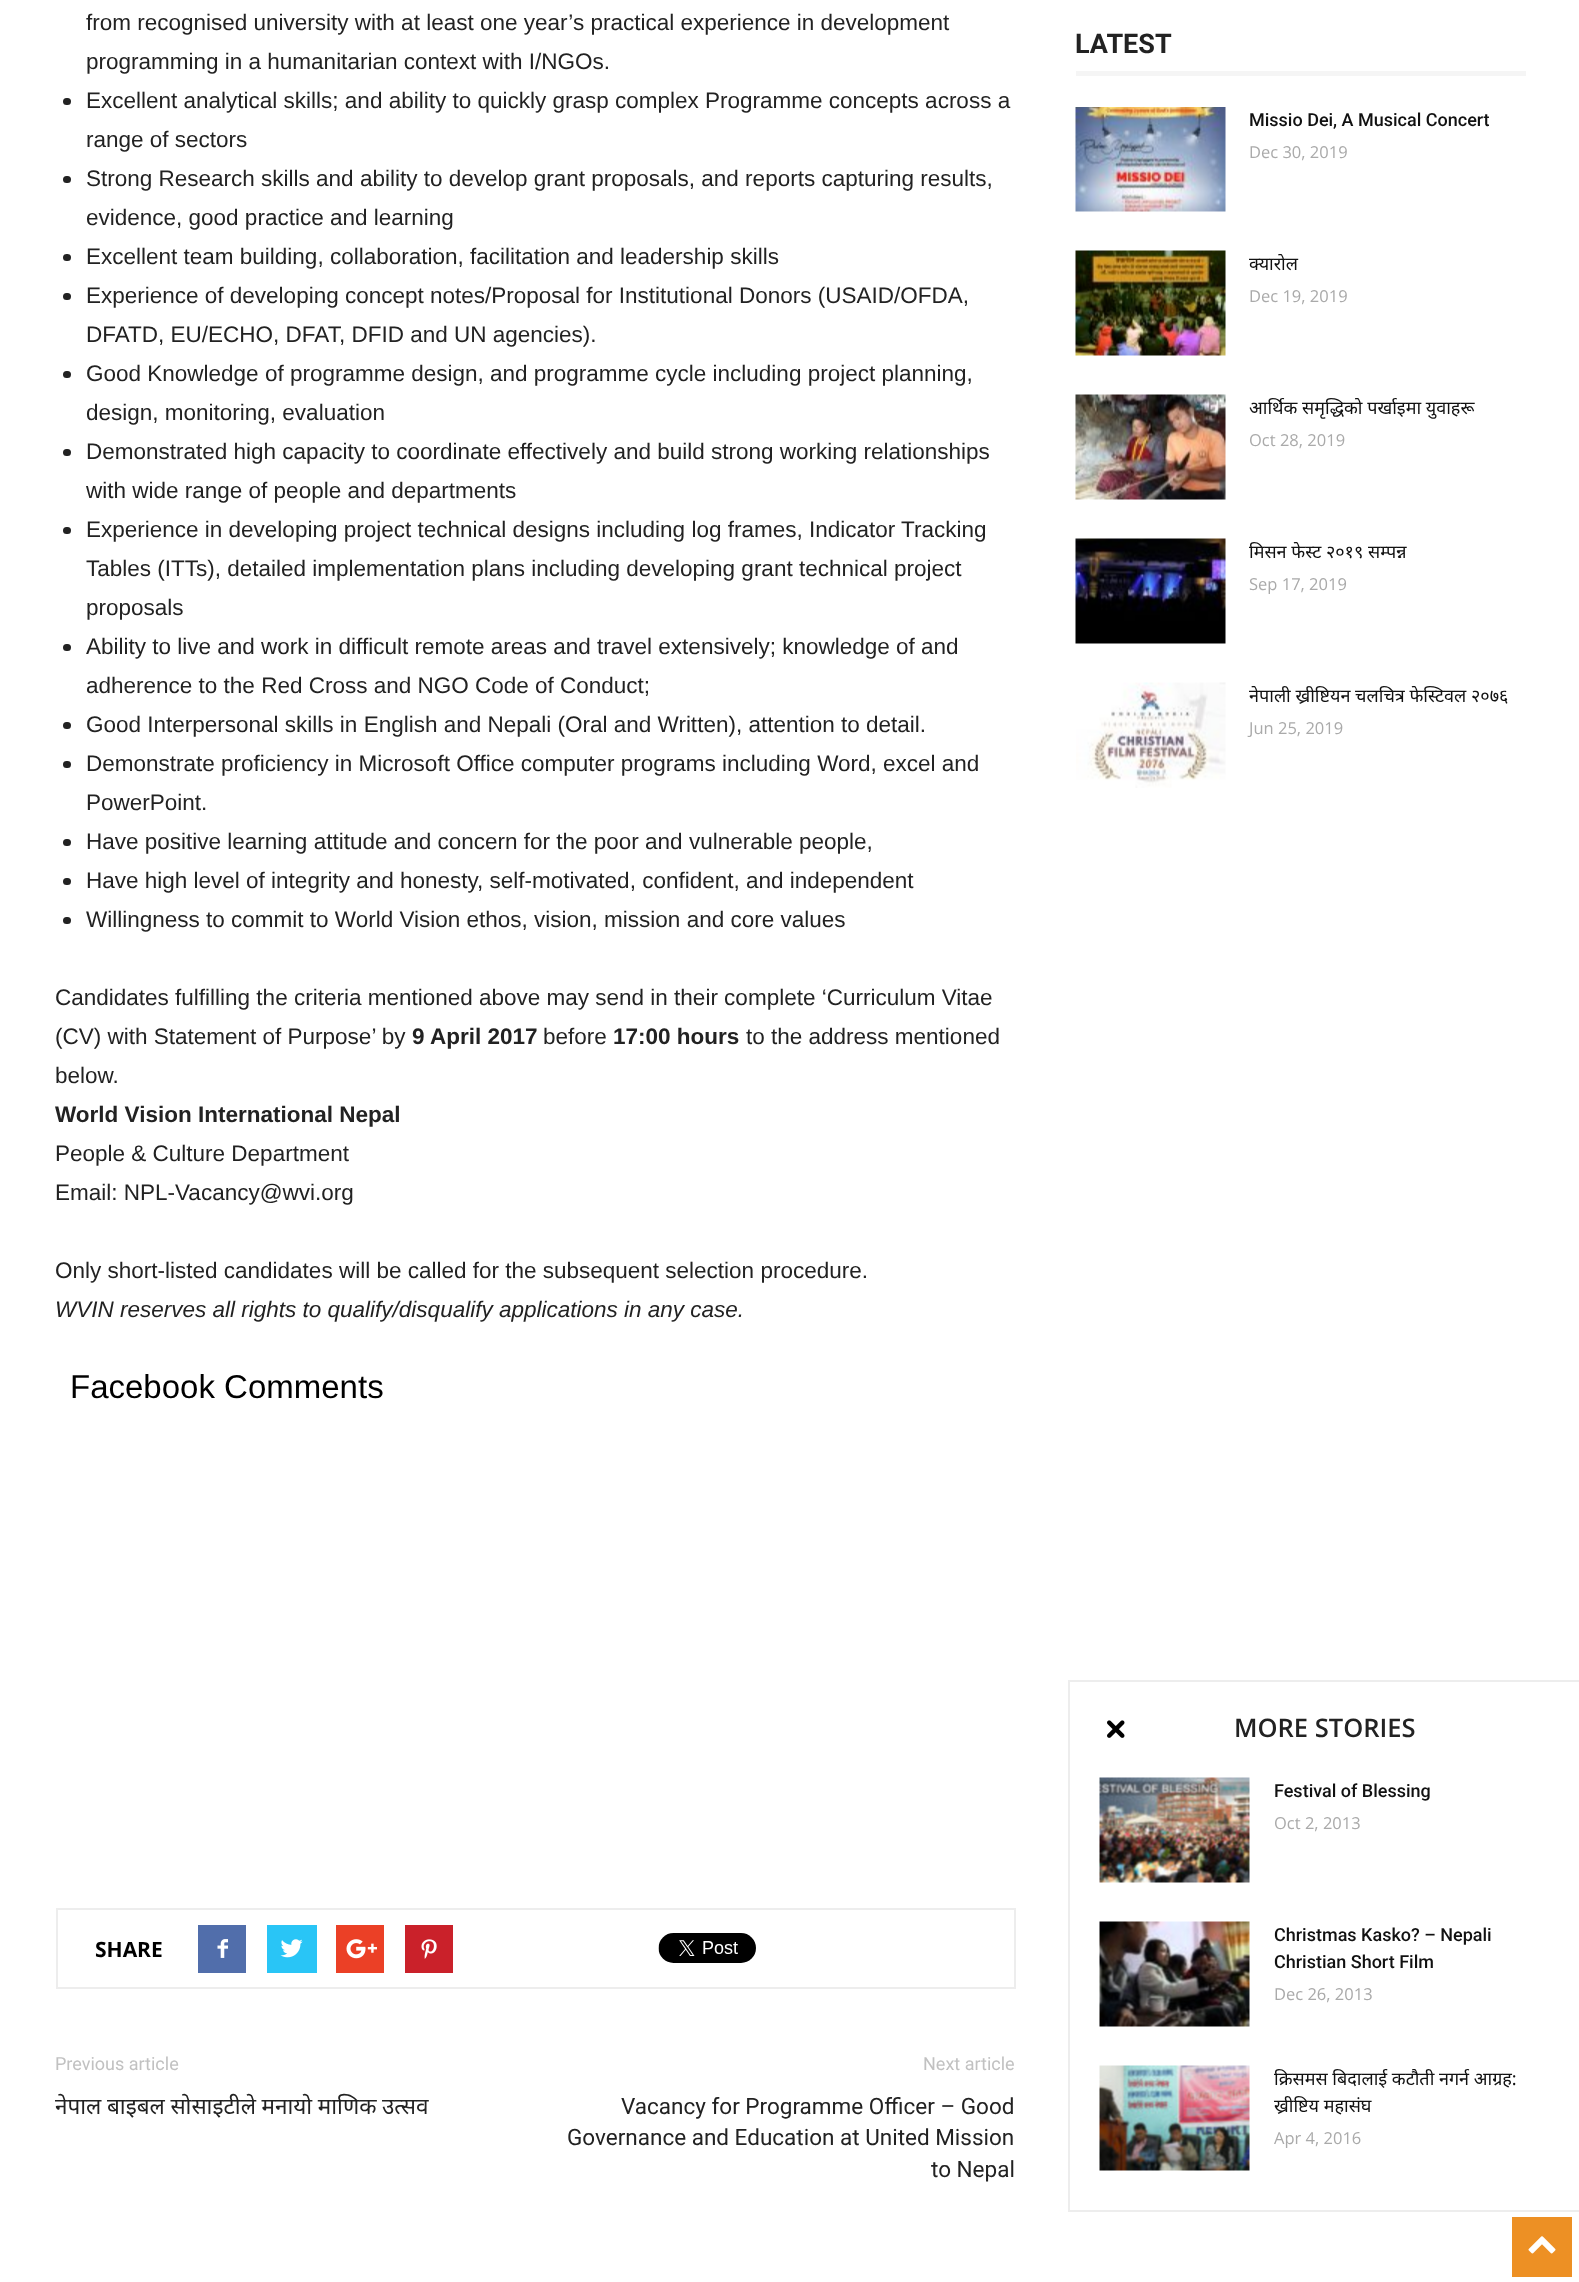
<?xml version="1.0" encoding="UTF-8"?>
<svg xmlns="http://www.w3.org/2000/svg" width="1579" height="2282">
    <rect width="100%" height="100%" fill="#FFFFFF"/>
    <text font-family="Liberation Sans" font-size="22.5" fill="#222222">
        <tspan x="86" y="30">from recognised university with at least one year’s practical experience in development</tspan>
        <tspan x="86" y="69">programming in a humanitarian context with I/NGOs.</tspan>
    </text>
    <rect x="63" y="98" width="8" height="7" rx="3.5" fill="#222222"/>
    <text font-family="Liberation Sans" font-size="22.5" fill="#222222">
        <tspan x="86" y="108">Excellent analytical skills; and ability to quickly grasp complex Programme concepts across a</tspan>
        <tspan x="86" y="147">range of sectors</tspan>
    </text>
    <rect x="63" y="176" width="8" height="7" rx="3.5" fill="#222222"/>
    <text font-family="Liberation Sans" font-size="22.5" fill="#222222">
        <tspan x="86" y="186">Strong Research skills and ability to develop grant proposals, and reports capturing results,</tspan>
        <tspan x="86" y="225">evidence, good practice and learning</tspan>
    </text>
    <rect x="63" y="254" width="8" height="7" rx="3.5" fill="#222222"/>
    <text x="86" y="264" font-family="Liberation Sans" font-size="22.5" fill="#222222">Excellent team building, collaboration, facilitation and leadership skills</text>
    <rect x="63" y="293" width="8" height="7" rx="3.5" fill="#222222"/>
    <text font-family="Liberation Sans" font-size="22.5" fill="#222222">
        <tspan x="86" y="303">Experience of developing concept notes/Proposal for Institutional Donors (USAID/OFDA,</tspan>
        <tspan x="86" y="342">DFATD, EU/ECHO, DFAT, DFID and UN agencies).</tspan>
    </text>
    <rect x="63" y="371" width="8" height="7" rx="3.5" fill="#222222"/>
    <text font-family="Liberation Sans" font-size="22.5" fill="#222222">
        <tspan x="86" y="381">Good Knowledge of programme design, and programme cycle including project planning,</tspan>
        <tspan x="86" y="420">design, monitoring, evaluation</tspan>
    </text>
    <rect x="63" y="449" width="8" height="7" rx="3.5" fill="#222222"/>
    <text font-family="Liberation Sans" font-size="22.5" fill="#222222">
        <tspan x="86" y="459">Demonstrated high capacity to coordinate effectively and build strong working relationships</tspan>
        <tspan x="86" y="498">with wide range of people and departments</tspan>
    </text>
    <rect x="63" y="527" width="8" height="7" rx="3.5" fill="#222222"/>
    <text font-family="Liberation Sans" font-size="22.5" fill="#222222">
        <tspan x="86" y="537">Experience in developing project technical designs including log frames, Indicator Tracking</tspan>
        <tspan x="86" y="576">Tables (ITTs), detailed implementation plans including developing grant technical project</tspan>
        <tspan x="86" y="615">proposals</tspan>
    </text>
    <rect x="63" y="644" width="8" height="7" rx="3.5" fill="#222222"/>
    <text font-family="Liberation Sans" font-size="22.5" fill="#222222">
        <tspan x="86" y="654">Ability to live and work in difficult remote areas and travel extensively; knowledge of and</tspan>
        <tspan x="86" y="693">adherence to the Red Cross and NGO Code of Conduct;</tspan>
    </text>
    <rect x="63" y="722" width="8" height="7" rx="3.5" fill="#222222"/>
    <text x="86" y="732" font-family="Liberation Sans" font-size="22.5" fill="#222222">Good Interpersonal skills in English and Nepali (Oral and Written), attention to detail.</text>
    <rect x="63" y="761" width="8" height="7" rx="3.5" fill="#222222"/>
    <text font-family="Liberation Sans" font-size="22.5" fill="#222222">
        <tspan x="86" y="771">Demonstrate proficiency in Microsoft Office computer programs including Word, excel and</tspan>
        <tspan x="86" y="810">PowerPoint.</tspan>
    </text>
    <rect x="63" y="839" width="8" height="7" rx="3.5" fill="#222222"/>
    <text x="86" y="849" font-family="Liberation Sans" font-size="22.5" fill="#222222">Have positive learning attitude and concern for the poor and vulnerable people,</text>
    <rect x="63" y="878" width="8" height="7" rx="3.5" fill="#222222"/>
    <text x="86" y="888" font-family="Liberation Sans" font-size="22.5" fill="#222222">Have high level of integrity and honesty, self-motivated, confident, and independent</text>
    <rect x="63" y="917" width="8" height="7" rx="3.5" fill="#222222"/>
    <text x="86" y="927" font-family="Liberation Sans" font-size="22.5" fill="#222222">Willingness to commit to World Vision ethos, vision, mission and core values</text>
    <text font-family="Liberation Sans" font-size="22.5" fill="#222222">
        <tspan x="55" y="1005">Candidates fulfilling the criteria mentioned above may send in their complete ‘Curriculum Vitae</tspan>
        <tspan x="55" y="1044">(CV) with Statement of Purpose’ by</tspan>
    </text>
    <text x="412" y="1044" font-family="Liberation Sans" font-size="22.5" font-weight="700" fill="#222222">9 April 2017</text>
    <text x="543" y="1044" font-family="Liberation Sans" font-size="22.5" fill="#222222">before</text>
    <text x="613" y="1044" font-family="Liberation Sans" font-size="22.5" font-weight="700" fill="#222222">17:00 hours</text>
    <text x="746" y="1044" font-family="Liberation Sans" font-size="22.5" fill="#222222">to the address mentioned</text>
    <text x="55" y="1083" font-family="Liberation Sans" font-size="22.5" fill="#222222">below.</text>
    <text x="55" y="1122" font-family="Liberation Sans" font-size="22.5" font-weight="700" fill="#222222">World Vision International Nepal</text>
    <text font-family="Liberation Sans" font-size="22.5" fill="#222222">
        <tspan x="55" y="1161">People &amp; Culture Department</tspan>
        <tspan x="55" y="1200">Email: NPL-Vacancy@wvi.org</tspan>
    </text>
    <text x="55" y="1278" font-family="Liberation Sans" font-size="22.5" fill="#222222">Only short-listed candidates will be called for the subsequent selection procedure.</text>
    <text x="55" y="1317" font-family="Liberation Sans" font-size="22.5" font-style="italic" fill="#222222">WVIN reserves all rights to qualify/disqualify applications in any case.</text>
    <text x="70" y="1398" font-family="Liberation Sans" font-size="33" fill="#000000">Facebook Comments</text>
    <rect x="57" y="1909" width="958" height="79" fill="none" stroke="#EDEDED" stroke-width="2"/>
    <text x="95" y="1957" font-family="Open Sans" font-size="21" font-weight="700" fill="#000000">SHARE</text>
    <rect x="198" y="1925" width="48" height="48" fill="#516EAB"/>
    <image x="217" y="1939" width="11" height="19" href="img_01.png"/>
    <rect x="267" y="1925" width="50" height="48" fill="#29C5F6"/>
    <image x="280" y="1939" width="23" height="19" href="img_02.png"/>
    <rect x="336" y="1925" width="48" height="48" fill="#EB4026"/>
    <image x="346" y="1939" width="31" height="20" href="img_03.png"/>
    <rect x="405" y="1925" width="48" height="48" fill="#CA212A"/>
    <image x="421" y="1939" width="16" height="20" href="img_04.png"/>
    <image x="658" y="1933" width="98" height="30" href="img_05.png"/>
    <text x="55" y="2070" font-family="Roboto" font-size="18" fill="#C1C1C1">Previous article</text>
    <text x="55" y="2114" word-spacing="-0.25" font-family="Noto Sans" font-size="22.5" fill="#222222">नेपाल बाइबल सोसाइटीले मनायो माणिक उत्सव</text>
    <text x="923" y="2070" font-family="Roboto" font-size="18" fill="#C1C1C1">Next article</text>
    <text x="621" y="2114" font-family="Roboto" font-size="22.5" fill="#222222">Vacancy for Programme Officer – Good</text>
    <text x="567" y="2145" font-family="Roboto" font-size="22.5" fill="#222222">Governance and Education at United Mission</text>
    <text x="931" y="2177" font-family="Roboto" font-size="22.5" fill="#222222">to Nepal</text>
    <text x="1075" y="53" font-family="Roboto" font-size="27" font-weight="700" fill="#222222">LATEST</text>
    <rect x="1076" y="71" width="450" height="5" fill="#F5F5F5"/>
    <image x="1075" y="107" width="151" height="105" href="img_06.png"/>
    <text x="1249" y="126" font-family="Roboto" font-size="18" font-weight="500" fill="#111111">Missio Dei, A Musical Concert</text>
    <text x="1249" y="158" font-family="Open Sans" font-size="16.5" fill="#AAAAAA">Dec 30, 2019</text>
    <image x="1075" y="250" width="151" height="106" href="img_07.png"/>
    <text x="1249" y="270" font-family="Noto Sans" font-size="18" fill="#111111">क्यारोल</text>
    <text x="1249" y="302" font-family="Open Sans" font-size="16.5" fill="#AAAAAA">Dec 19, 2019</text>
    <image x="1075" y="394" width="151" height="106" href="img_08.png"/>
    <text x="1249" y="414" font-family="Noto Sans" font-size="18" fill="#111111">आर्थिक समृद्धिको पर्खाइमा युवाहरू</text>
    <text x="1249" y="446" font-family="Open Sans" font-size="16.5" fill="#AAAAAA">Oct 28, 2019</text>
    <image x="1075" y="538" width="151" height="106" href="img_09.png"/>
    <text x="1249" y="558" font-family="Noto Sans" font-size="18" fill="#111111">मिसन फेस्ट २०१९ सम्पन्न</text>
    <text x="1249" y="590" font-family="Open Sans" font-size="16.5" fill="#AAAAAA">Sep 17, 2019</text>
    <image x="1076" y="682" width="150" height="106" href="img_10.png"/>
    <text x="1249" y="702" font-family="Noto Sans" font-size="18" fill="#111111">नेपाली ख्रीष्टियन चलचित्र फेस्टिवल २०७६</text>
    <text x="1249" y="734" font-family="Open Sans" font-size="16.5" fill="#AAAAAA">Jun 25, 2019</text>
    <rect x="1068" y="1680" width="511" height="2" fill="#EDEDED"/>
    <rect x="1068" y="2210" width="511" height="2" fill="#EDEDED"/>
    <rect x="1068" y="1680" width="2" height="531" fill="#EDEDED"/>
    <image x="1107" y="1720" width="18" height="18" href="img_11.png"/>
    <text x="1234" y="1737" font-family="Open Sans" font-size="25.5" font-weight="600" fill="#222222">MORE STORIES</text>
    <image x="1099" y="1777" width="151" height="106" href="img_12.png"/>
    <text x="1274" y="1797" font-family="Roboto" font-size="18" font-weight="500" fill="#111111">Festival of Blessing</text>
    <text x="1274" y="1829" font-family="Open Sans" font-size="16.5" fill="#AAAAAA">Oct 2, 2013</text>
    <image x="1099" y="1921" width="151" height="106" href="img_13.png"/>
    <text font-family="Roboto" font-size="18" font-weight="500" fill="#111111">
        <tspan x="1274" y="1941">Christmas Kasko? – Nepali</tspan>
        <tspan x="1274" y="1968">Christian Short Film</tspan>
    </text>
    <text x="1274" y="2000" font-family="Open Sans" font-size="16.5" fill="#AAAAAA">Dec 26, 2013</text>
    <image x="1099" y="2065" width="151" height="106" href="img_14.png"/>
    <text font-family="Noto Sans" font-size="18" fill="#111111">
        <tspan x="1274" y="2085">क्रिसमस बिदालाई कटौती नगर्न आग्रह:</tspan>
        <tspan x="1274" y="2112">ख्रीष्टिय महासंघ</tspan>
    </text>
    <text x="1274" y="2144" font-family="Open Sans" font-size="16.5" fill="#AAAAAA">Apr 4, 2016</text>
    <rect x="1512" y="2217" width="60" height="60" fill="#ED9024"/>
    <image x="1528" y="2236" width="28" height="18" href="img_15.png"/>
</svg>
